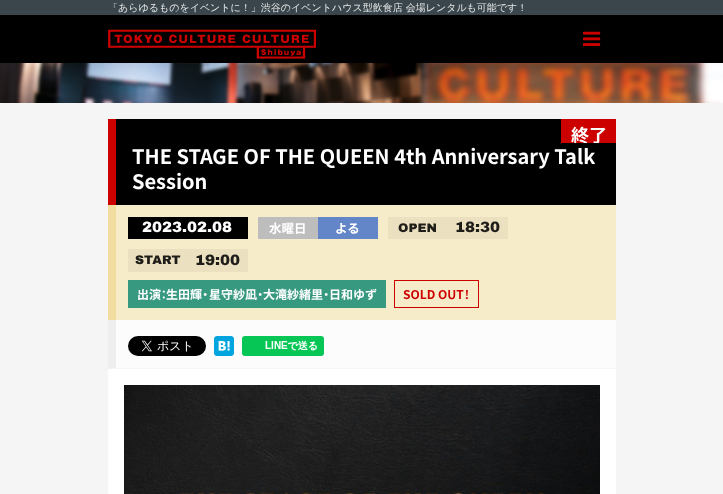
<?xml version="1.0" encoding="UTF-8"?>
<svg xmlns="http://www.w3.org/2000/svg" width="723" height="494">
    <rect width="100%" height="100%" fill="#F5F5F5"/>
    <rect x="0" y="0" width="723" height="15" fill="#3A464C"/>
    <text x="108" y="11" font-family="WenQuanYi Zen Hei" font-size="10" font-weight="500" fill="#E5E7E8">「あらゆるものをイベントに！」渋谷のイベントハウス型飲食店 会場レンタルも可能です！</text>
    <rect x="0" y="15" width="723" height="48" fill="#000000"/>
    <image x="108" y="29" width="208" height="30" href="img_01.png"/>
    <image x="583" y="31" width="18" height="15" href="img_02.png"/>
    <image x="0" y="63" width="723" height="40" href="img_03.png"/>
    <rect x="108" y="369" width="508" height="125" fill="#FFFFFF"/>
    <rect x="116" y="119" width="445" height="24" fill="#000000"/>
    <rect x="108" y="119" width="8" height="86" fill="#CD0000"/>
    <rect x="561" y="119" width="55" height="24" fill="#CD0000"/>
    <text x="571" y="142" font-family="Noto Sans JP" font-size="18" font-weight="700" fill="#FFFFFF">終了</text>
    <rect x="116" y="143" width="500" height="62" fill="#000000"/>
    <text font-family="Noto Sans JP" font-size="20" font-weight="700" fill="#FFFFFF">
        <tspan x="132" y="164">THE STAGE OF THE QUEEN 4th Anniversary Talk</tspan>
        <tspan x="132" y="189">Session</tspan>
    </text>
    <rect x="116" y="205" width="500" height="115" fill="#F7ECCA"/>
    <rect x="108" y="205" width="8" height="115" fill="#F1DD9F"/>
    <rect x="128" y="217" width="120" height="22" fill="#000000"/>
    <text x="142" y="232" font-family="Archivo Black" font-size="15" font-weight="900" fill="#FFFFFF">2023.02.08</text>
    <rect x="258" y="217" width="60" height="22" fill="#BDBDBD"/>
    <text x="269" y="233" font-family="Noto Sans JP" font-size="12.5" font-weight="700" fill="#FFFFFF">水曜日</text>
    <rect x="318" y="217" width="60" height="22" fill="#6386C8"/>
    <text x="335" y="233" font-family="Noto Sans JP" font-size="12.5" font-weight="700" fill="#FFFFFF">よる</text>
    <rect x="388" y="217" width="120" height="22" fill="#EBE0C0"/>
    <text x="398" y="232" font-family="Archivo Black" font-size="12.5" font-weight="900" fill="#1F1D19">OPEN</text>
    <text x="455" y="232" font-family="Archivo Black" font-size="15" font-weight="900" fill="#1F1D19">18:30</text>
    <rect x="128" y="249" width="120" height="23" fill="#EBE0C0"/>
    <text x="135" y="264" font-family="Archivo Black" font-size="12.5" font-weight="900" fill="#1F1D19">START</text>
    <text x="195" y="265" font-family="Archivo Black" font-size="15" font-weight="900" fill="#1F1D19">19:00</text>
    <rect x="128" y="280" width="258" height="28" fill="#369980"/>
    <text x="137" y="299" font-family="Noto Sans JP" font-size="12" font-weight="700" fill="#FFFFFF">出演</text>
    <text x="161" y="299" font-family="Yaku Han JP" font-size="12" font-weight="500" fill="#FFFFFF">：</text>
    <text x="166" y="299" font-family="Noto Sans JP" font-size="12" font-weight="700" fill="#FFFFFF">生田輝</text>
    <text x="202" y="299" font-family="Yaku Han JP" font-size="12" font-weight="500" fill="#FFFFFF">・</text>
    <text x="209" y="299" font-family="Noto Sans JP" font-size="12" font-weight="700" fill="#FFFFFF">星守紗凪</text>
    <text x="257" y="299" font-family="Yaku Han JP" font-size="12" font-weight="500" fill="#FFFFFF">・</text>
    <text x="263" y="299" font-family="Noto Sans JP" font-size="12" font-weight="700" fill="#FFFFFF">大滝紗緒里</text>
    <text x="323" y="299" font-family="Yaku Han JP" font-size="12" font-weight="500" fill="#FFFFFF">・</text>
    <text x="329" y="299" font-family="Noto Sans JP" font-size="12" font-weight="700" fill="#FFFFFF">日和ゆず</text>
    <rect x="394.5" y="280.5" width="84" height="27" fill="none" stroke="#CD0000"/>
    <text x="403" y="299" font-family="Noto Sans JP" font-size="12" font-weight="700" fill="#CD0000">SOLD OUT</text>
    <text x="464" y="299" font-family="Yaku Han JP" font-size="12" font-weight="500" fill="#CD0000">！</text>
    <rect x="108" y="320" width="508" height="49" fill="#FCFCFC"/>
    <path d="M 616 369 H 108 L 116 368 H 616 Z" fill="#F7F7F7"/>
    <path d="M 108 369 V 320 H 116 V 368 Z" fill="#EEEEEE"/>
    <image x="128" y="336" width="78" height="20" href="img_04.png"/>
    <image x="214" y="336" width="20" height="20" href="img_05.png"/>
    <image x="242" y="336" width="82" height="20" href="img_06.png"/>
    <image x="124" y="385" width="476" height="109" href="img_07.png"/>
</svg>
